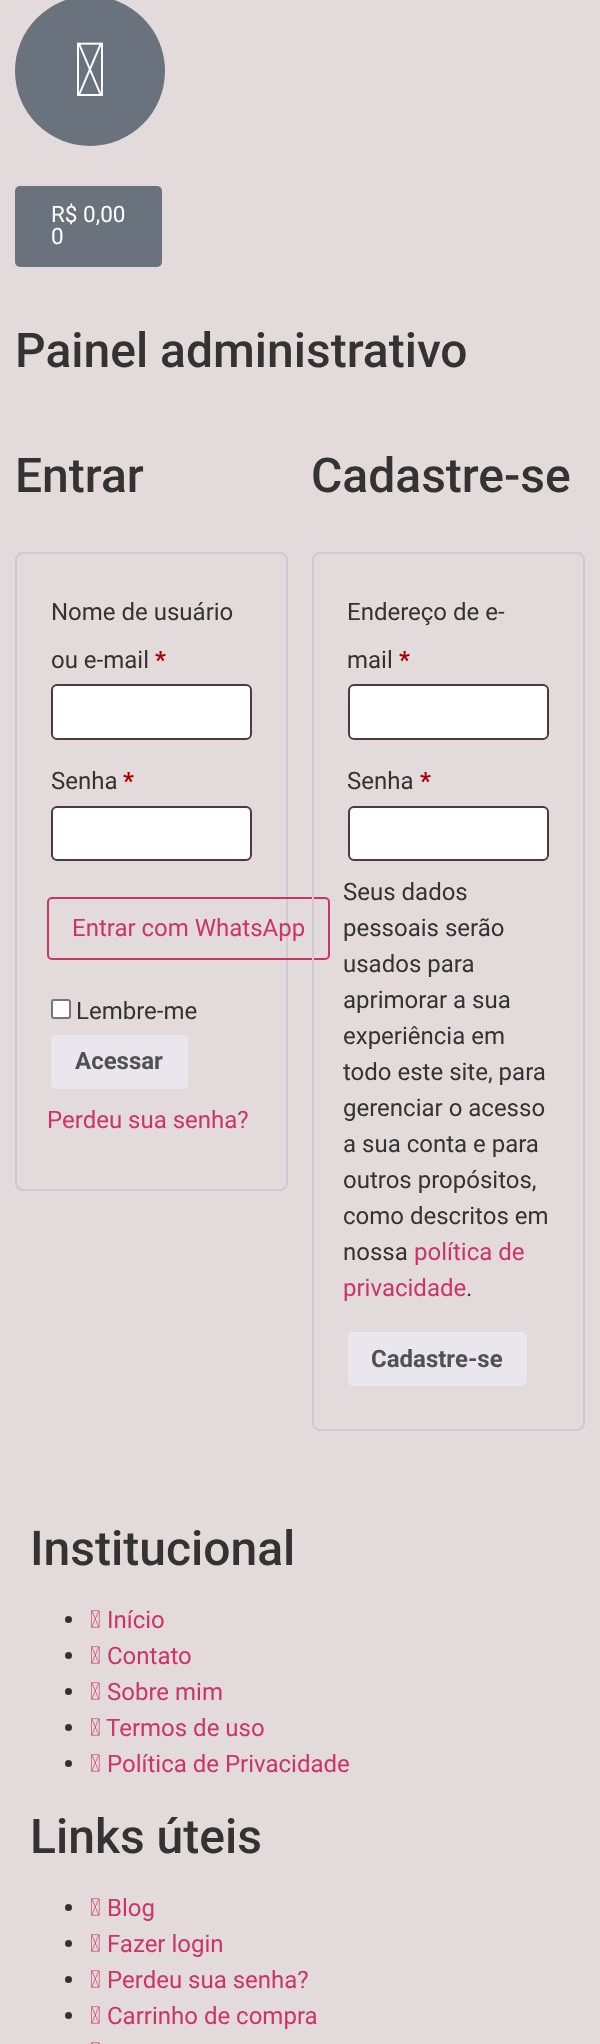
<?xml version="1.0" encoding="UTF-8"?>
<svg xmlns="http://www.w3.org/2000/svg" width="600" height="2044">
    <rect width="100%" height="100%" fill="#E3DBDB"/>
    <circle cx="90" cy="71" r="75" fill="#69727D"/>
    <image x="77" y="42" width="26" height="54" href="img_01.png"/>
    <rect x="15" y="186" width="147" height="81" rx="5" fill="#69727D"/>
    <text font-family="Roboto" font-size="22.5" fill="#FFFFFF">
        <tspan x="51" y="222">R$ 0,00</tspan>
        <tspan x="51" y="244">0</tspan>
    </text>
    <text x="15" y="367" font-family="Roboto" font-size="48" font-weight="500" fill="#333333">Painel administrativo</text>
    <text x="15" y="492" font-family="Roboto" font-size="48" font-weight="500" fill="#333333">Entrar</text>
    <rect x="16" y="553" width="271" height="637" rx="7" fill="none" stroke="#CFC8D8" stroke-width="2"/>
    <text x="51" y="620" font-family="Roboto" font-size="24" fill="#333333">Nome de usuário</text>
    <text x="51" y="668" font-family="Roboto" font-size="24" fill="#333333">ou e-mail</text>
    <text x="155" y="668" font-family="Roboto" font-size="24" font-weight="700" fill="#AA0000">*</text>
    <rect x="51" y="684" width="201" height="56" rx="6" fill="#FFFFFF"/>
    <rect x="52" y="685" width="199" height="54" rx="5" fill="none" stroke="#200707" stroke-opacity="0.8" stroke-width="2"/>
    <text x="51" y="789" font-family="Roboto" font-size="24" fill="#333333">Senha</text>
    <text x="123" y="789" font-family="Roboto" font-size="24" font-weight="700" fill="#AA0000">*</text>
    <rect x="51" y="806" width="201" height="55" rx="6" fill="#FFFFFF"/>
    <rect x="52" y="807" width="199" height="53" rx="5" fill="none" stroke="#200707" stroke-opacity="0.8" stroke-width="2"/>
    <rect x="48" y="898" width="281" height="61" rx="4" fill="none" stroke="#CC3366" stroke-width="2"/>
    <text x="72" y="936" font-family="Roboto" font-size="24" fill="#CC3366">Entrar com WhatsApp</text>
    <rect x="52" y="1000" width="18" height="18" rx="2" fill="#FFFFFF" stroke="#767676" stroke-width="2"/>
    <text x="76" y="1019" font-family="Roboto" font-size="24" fill="#333333">Lembre-me</text>
    <rect x="51" y="1035" width="137" height="54" rx="5" fill="#E9E6ED"/>
    <text x="75" y="1069" font-family="Roboto" font-size="24" font-weight="700" fill="#515151">Acessar</text>
    <text x="47" y="1128" font-family="Roboto" font-size="24" fill="#CC3366">Perdeu sua senha?</text>
    <text x="311" y="492" font-family="Roboto" font-size="48" font-weight="500" fill="#333333">Cadastre-se</text>
    <rect x="313" y="553" width="271" height="877" rx="7" fill="none" stroke="#CFC8D8" stroke-width="2"/>
    <text x="347" y="620" font-family="Roboto" font-size="24" fill="#333333">Endereço de e-</text>
    <text x="347" y="668" font-family="Roboto" font-size="24" fill="#333333">mail</text>
    <text x="399" y="668" font-family="Roboto" font-size="24" font-weight="700" fill="#AA0000">*</text>
    <rect x="348" y="684" width="201" height="56" rx="6" fill="#FFFFFF"/>
    <rect x="349" y="685" width="199" height="54" rx="5" fill="none" stroke="#200707" stroke-opacity="0.8" stroke-width="2"/>
    <text x="347" y="789" font-family="Roboto" font-size="24" fill="#333333">Senha</text>
    <text x="420" y="789" font-family="Roboto" font-size="24" font-weight="700" fill="#AA0000">*</text>
    <rect x="348" y="806" width="201" height="55" rx="6" fill="#FFFFFF"/>
    <rect x="349" y="807" width="199" height="53" rx="5" fill="none" stroke="#200707" stroke-opacity="0.8" stroke-width="2"/>
    <text font-family="Roboto" font-size="24" fill="#333333">
        <tspan x="343" y="900">Seus dados</tspan>
        <tspan x="343" y="936">pessoais serão</tspan>
        <tspan x="343" y="972">usados para</tspan>
        <tspan x="343" y="1008">aprimorar a sua</tspan>
        <tspan x="343" y="1044">experiência em</tspan>
        <tspan x="343" y="1080">todo este site, para</tspan>
        <tspan x="343" y="1116">gerenciar o acesso</tspan>
        <tspan x="343" y="1152">a sua conta e para</tspan>
        <tspan x="343" y="1188">outros propósitos,</tspan>
        <tspan x="343" y="1224">como descritos em</tspan>
        <tspan x="343" y="1260">nossa</tspan>
    </text>
    <text x="414" y="1260" font-family="Roboto" font-size="24" fill="#CC3366">política de</text>
    <text x="343" y="1296" font-family="Roboto" font-size="24" fill="#CC3366">privacidade</text>
    <text x="466" y="1296" font-family="Roboto" font-size="24" fill="#333333">.</text>
    <rect x="348" y="1332" width="179" height="54" rx="5" fill="#E9E6ED"/>
    <text x="371" y="1367" font-family="Roboto" font-size="24" font-weight="700" fill="#515151">Cadastre-se</text>
    <text x="30" y="1565" font-family="Roboto" font-size="48" font-weight="500" fill="#333333">Institucional</text>
    <circle cx="68.5" cy="1619.5" r="3.5" fill="#333333"/>
    <image x="91" y="1610" width="9" height="18" href="img_02.png"/>
    <text x="107" y="1628" font-family="Roboto" font-size="24" fill="#CC3366">Início</text>
    <circle cx="68.5" cy="1655.5" r="3.5" fill="#333333"/>
    <image x="91" y="1646" width="9" height="18" href="img_02.png"/>
    <text x="107" y="1664" font-family="Roboto" font-size="24" fill="#CC3366">Contato</text>
    <circle cx="68.5" cy="1691.5" r="3.5" fill="#333333"/>
    <image x="91" y="1682" width="9" height="18" href="img_02.png"/>
    <text x="107" y="1700" font-family="Roboto" font-size="24" fill="#CC3366">Sobre mim</text>
    <circle cx="68.5" cy="1727.5" r="3.5" fill="#333333"/>
    <image x="91" y="1718" width="9" height="18" href="img_02.png"/>
    <text x="106" y="1736" font-family="Roboto" font-size="24" fill="#CC3366">Termos de uso</text>
    <circle cx="68.5" cy="1763.5" r="3.5" fill="#333333"/>
    <image x="91" y="1754" width="9" height="18" href="img_02.png"/>
    <text x="107" y="1772" font-family="Roboto" font-size="24" fill="#CC3366">Política de Privacidade</text>
    <text x="30" y="1853" font-family="Roboto" font-size="48" font-weight="500" fill="#333333">Links úteis</text>
    <circle cx="68.5" cy="1907.5" r="3.5" fill="#333333"/>
    <image x="91" y="1898" width="9" height="18" href="img_02.png"/>
    <text x="107" y="1916" font-family="Roboto" font-size="24" fill="#CC3366">Blog</text>
    <circle cx="68.5" cy="1943.5" r="3.5" fill="#333333"/>
    <image x="91" y="1934" width="9" height="18" href="img_02.png"/>
    <text x="107" y="1952" font-family="Roboto" font-size="24" fill="#CC3366">Fazer login</text>
    <circle cx="68.5" cy="1979.5" r="3.5" fill="#333333"/>
    <image x="91" y="1970" width="9" height="18" href="img_02.png"/>
    <text x="107" y="1988" font-family="Roboto" font-size="24" fill="#CC3366">Perdeu sua senha?</text>
    <circle cx="68.5" cy="2015.5" r="3.5" fill="#333333"/>
    <image x="91" y="2006" width="9" height="18" href="img_02.png"/>
    <text x="107" y="2024" font-family="Roboto" font-size="24" fill="#CC3366">Carrinho de compra</text>
    <image x="91" y="2042" width="9" height="2" href="img_03.png"/>
</svg>
